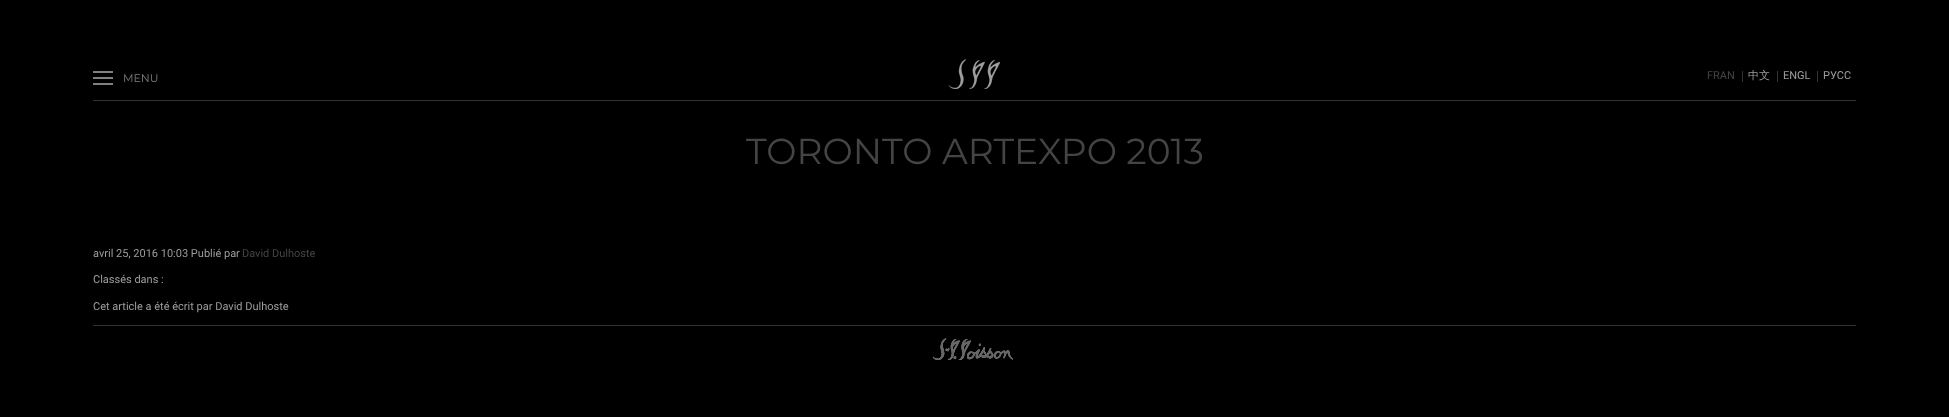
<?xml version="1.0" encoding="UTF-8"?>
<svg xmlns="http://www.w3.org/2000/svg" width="1949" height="417">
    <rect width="100%" height="100%" fill="#000000"/>
    <rect x="93" y="100" width="1763" height="1" fill="#333333"/>
    <rect x="93" y="71" width="20" height="2" fill="#808080"/>
    <rect x="93" y="77" width="20" height="2" fill="#808080"/>
    <text x="123" y="82" font-family="Montserrat" font-size="11" fill="#808080">MENU</text>
    <rect x="93" y="83" width="20" height="2" fill="#808080"/>
    <image x="948" y="59" width="52" height="30" href="img_01.png"/>
    <text x="1707" y="79" font-family="Roboto" font-size="11" fill="#444444">FRAN</text>
    <rect x="1742" y="71" width="1" height="11" fill="#333333"/>
    <text x="1748" y="79" font-family="WenQuanYi Zen Hei" font-size="11" font-weight="500" fill="#9E9D9D">中文</text>
    <rect x="1777" y="71" width="1" height="11" fill="#333333"/>
    <text x="1783" y="79" font-family="Roboto" font-size="11" fill="#9E9D9D">ENGL</text>
    <rect x="1817" y="71" width="1" height="11" fill="#333333"/>
    <text x="1823" y="79" font-family="Roboto" font-size="11" fill="#9E9D9D">РУСС</text>
    <text x="746" y="164" font-family="Montserrat" font-size="36" fill="#444444">TORONTO ARTEXPO 2013</text>
    <text x="93" y="257" font-family="Roboto" font-size="11" fill="#9E9D9D">avril 25, 2016 10:03 Publié par</text>
    <text x="242" y="257" font-family="Roboto" font-size="11" fill="#444444">David Dulhoste</text>
    <text x="93" y="283" font-family="Roboto" font-size="11" fill="#9E9D9D">Classés dans :</text>
    <text x="93" y="310" font-family="Roboto" font-size="11" fill="#9E9D9D">Cet article a été écrit par David Dulhoste</text>
    <rect x="93" y="325" width="1763" height="1" fill="#333333"/>
    <image x="933" y="338" width="80" height="22" href="img_02.png"/>
</svg>
